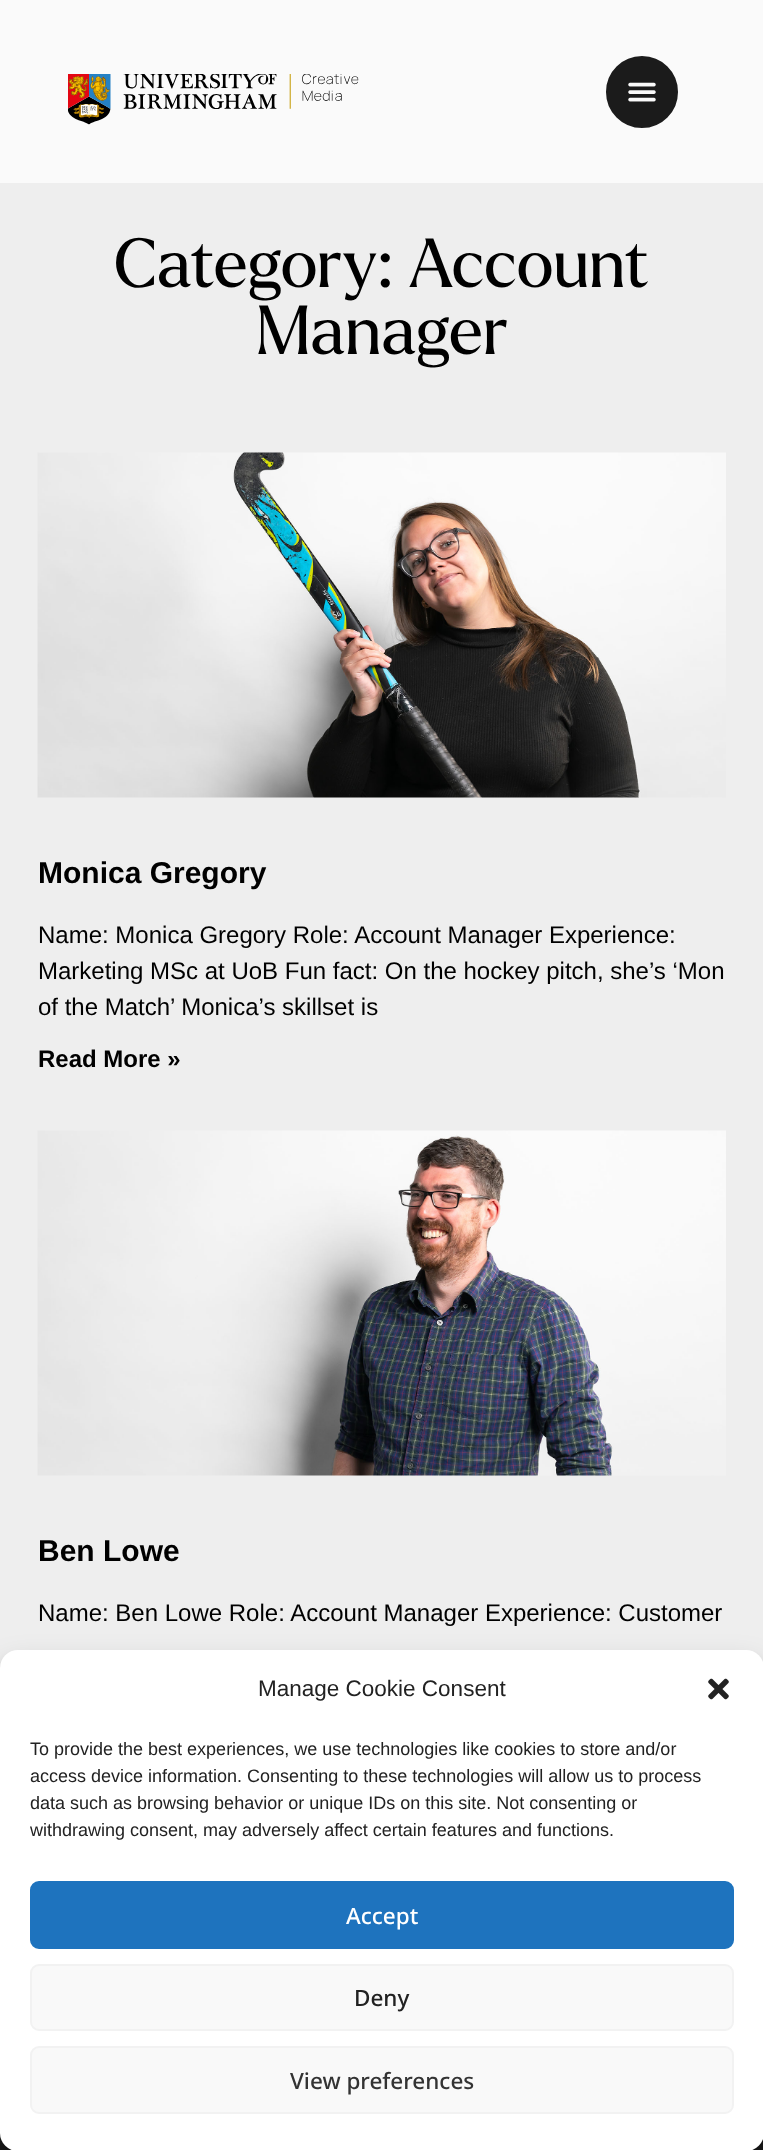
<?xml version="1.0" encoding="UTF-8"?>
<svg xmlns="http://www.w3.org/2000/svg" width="763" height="2150">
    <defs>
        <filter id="blur1" x="-50%" y="-200%" width="200%" height="500%"><feGaussianBlur stdDeviation="4.5"/></filter>
        <filter id="blur2" x="-50%" y="-200%" width="200%" height="500%"><feGaussianBlur stdDeviation="15"/></filter>
    </defs>
    <rect width="100%" height="100%" fill="#EEEEEE"/>
    <rect x="0" y="0" width="763" height="183" fill="#FAFAFA"/>
    <image x="68" y="74" width="291" height="51" href="img_01.png"/>
    <circle cx="642" cy="92" r="37.5" fill="#1B1B1B" stroke="#FAFAFA" stroke-width="3"/>
    <image x="628" y="82" width="28" height="20" href="img_02.png"/>
    <text x="114" y="287" font-family="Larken" font-size="67.5" fill="#000000">Category: Account</text>
    <text x="256" y="354" font-family="Larken" font-size="67.5" fill="#000000">Manager</text>
    <image x="37" y="452" width="689" height="346" href="img_03.png"/>
    <text x="38" y="883" font-family="Liberation Sans" font-size="30" font-weight="700" fill="#000000">Monica Gregory</text>
    <text font-family="Liberation Sans" font-size="24" fill="#000000">
        <tspan x="38" y="943">Name: Monica Gregory Role: Account Manager Experience:</tspan>
        <tspan x="38" y="979">Marketing MSc at UoB Fun fact: On the hockey pitch, she’s ‘Mon</tspan>
        <tspan x="38" y="1015">of the Match’ Monica’s skillset is</tspan>
    </text>
    <text x="38" y="1067" font-family="Liberation Sans" font-size="24" font-weight="700" fill="#000000">Read More »</text>
    <image x="37" y="1130" width="689" height="346" href="img_04.png"/>
    <text x="38" y="1561" font-family="Liberation Sans" font-size="30" font-weight="700" fill="#000000">Ben Lowe</text>
    <text x="38" y="1621" font-family="Liberation Sans" font-size="24" fill="#000000">Name: Ben Lowe Role: Account Manager Experience: Customer</text>
    <rect x="0" y="2133" width="763" height="17" fill="#1B1B1B"/>
    <rect x="0" y="1659" width="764" height="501" rx="18" fill="#000000" fill-opacity="0.23" filter="url(#blur1)"/>
    <rect x="0" y="1665" width="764" height="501" rx="18" fill="#000000" fill-opacity="0.19" filter="url(#blur2)"/>
    <rect x="0" y="1650" width="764" height="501" rx="18" fill="#FFFFFF"/>
    <text x="258" y="1696" font-family="Liberation Sans" font-size="22.5" fill="#222222">Manage Cookie Consent</text>
    <image x="708" y="1678" width="21" height="22" href="img_05.png"/>
    <text font-family="Liberation Sans" font-size="18" fill="#222222">
        <tspan x="30" y="1755">To provide the best experiences, we use technologies like cookies to store and/or</tspan>
        <tspan x="30" y="1782">access device information. Consenting to these technologies will allow us to process</tspan>
        <tspan x="30" y="1809">data such as browsing behavior or unique IDs on this site. Not consenting or</tspan>
        <tspan x="30" y="1836">withdrawing consent, may adversely affect certain features and functions.</tspan>
    </text>
    <rect x="31" y="1882" width="702" height="66" rx="8" fill="#1E73BE" stroke="#1E73BE" stroke-width="2"/>
    <text x="346" y="1924" font-family="Noto Sans" font-size="22.5" font-weight="500" fill="#FFFFFF">Accept</text>
    <rect x="31" y="1965" width="702" height="65" rx="8" fill="#F9F9F9" stroke="#F2F2F2" stroke-width="2"/>
    <text x="354" y="2006" font-family="Noto Sans" font-size="22.5" font-weight="500" fill="#222222">Deny</text>
    <rect x="31" y="2047" width="702" height="66" rx="8" fill="#F9F9F9" stroke="#F2F2F2" stroke-width="2"/>
    <text x="290" y="2089" font-family="Noto Sans" font-size="22.5" font-weight="500" fill="#333333">View preferences</text>
</svg>
